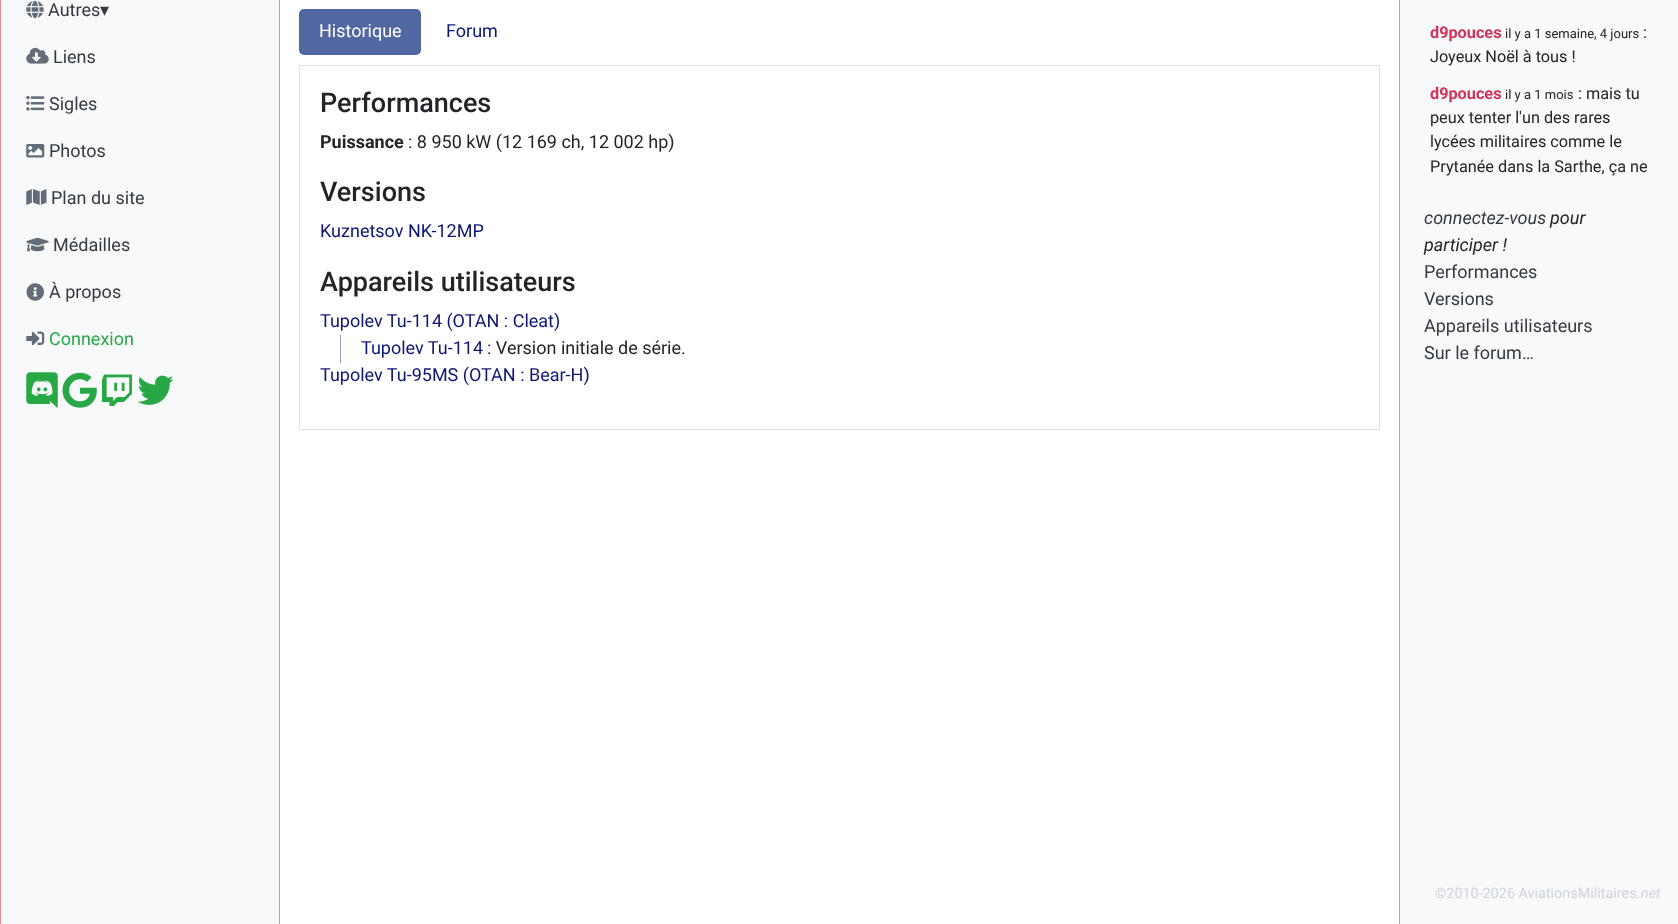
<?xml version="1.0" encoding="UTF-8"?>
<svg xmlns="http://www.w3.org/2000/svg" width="1678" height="924">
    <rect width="100%" height="100%" fill="#FFFFFF"/>
    <rect x="1" y="0" width="278" height="924" fill="#F8F9FA"/>
    <rect x="279" y="0" width="1" height="924" fill="#EB8C95"/>
    <rect x="0" y="0" width="1" height="924" fill="#EB8C95"/>
    <image x="26" y="0" width="18" height="19" href="img_01.png"/>
    <text x="48" y="16" font-family="Roboto" font-size="18" fill="#343A40">Autres</text>
    <text x="100" y="16" font-family="DejaVu Sans" font-size="18" fill="#343A40">▾</text>
    <image x="26" y="47" width="23" height="17" href="img_02.png"/>
    <text x="53" y="63" font-family="Roboto" font-size="18" fill="#343A40">Liens</text>
    <image x="26" y="96" width="19" height="15" href="img_03.png"/>
    <text x="49" y="110" font-family="Roboto" font-size="18" fill="#343A40">Sigles</text>
    <image x="26" y="144" width="19" height="14" href="img_04.png"/>
    <text x="49" y="157" font-family="Roboto" font-size="18" fill="#343A40">Photos</text>
    <image x="26" y="189" width="21" height="16" href="img_05.png"/>
    <text x="51" y="204" font-family="Roboto" font-size="18" fill="#343A40">Plan du site</text>
    <image x="26" y="237" width="23" height="15" href="img_06.png"/>
    <text x="53" y="251" font-family="Roboto" font-size="18" fill="#343A40">Médailles</text>
    <image x="26" y="283" width="18" height="18" href="img_07.png"/>
    <text x="49" y="298" font-family="Roboto" font-size="18" fill="#343A40">À propos</text>
    <image x="26" y="331" width="19" height="15" href="img_08.png"/>
    <text x="49" y="345" font-family="Roboto" font-size="18" fill="#28A745">Connexion</text>
    <image x="26" y="372" width="32" height="37" href="img_09.png"/>
    <image x="62" y="372" width="35" height="36" href="img_10.png"/>
    <image x="101" y="374" width="32" height="32" href="img_11.png"/>
    <image x="137" y="375" width="37" height="30" href="img_12.png"/>
    <rect x="299" y="9" width="122" height="46" rx="5" fill="#5167A1"/>
    <text x="319" y="37" font-family="Roboto" font-size="18" fill="#FFFFFF">Historique</text>
    <text x="446" y="37" font-family="Roboto" font-size="18" fill="#0C1673">Forum</text>
    <rect x="299.5" y="65.5" width="1080" height="364" fill="none" stroke="#DEE2E6"/>
    <text x="320" y="112" font-family="Roboto" font-size="27" font-weight="500" fill="#212529">Performances</text>
    <text x="320" y="148" font-family="Roboto" font-size="18" font-weight="700" fill="#212529">Puissance</text>
    <text x="408" y="148" font-family="Roboto" font-size="18" fill="#212529">: 8 950 kW (12 169 ch, 12 002 hp)</text>
    <text x="320" y="201" font-family="Roboto" font-size="27" font-weight="500" fill="#212529">Versions</text>
    <text x="320" y="237" font-family="Roboto" font-size="18" fill="#0C1673">Kuznetsov NK-12MP</text>
    <text x="320" y="291" font-family="Roboto" font-size="27" font-weight="500" fill="#212529">Appareils utilisateurs</text>
    <text x="320" y="327" font-family="Roboto" font-size="18" fill="#0C1673">Tupolev Tu-114 (OTAN : Cleat)</text>
    <rect x="340" y="335" width="1" height="28" fill="#91A0C7"/>
    <text x="361" y="354" font-family="Roboto" font-size="18" fill="#0C1673">Tupolev Tu-114</text>
    <text x="487" y="354" font-family="Roboto" font-size="18" fill="#212529">: Version initiale de série.</text>
    <text x="320" y="381" font-family="Roboto" font-size="18" fill="#0C1673">Tupolev Tu-95MS (OTAN : Bear-H)</text>
    <rect x="1400" y="0" width="278" height="924" fill="#F8F9FA"/>
    <rect x="1399" y="0" width="1" height="924" fill="#EB8C95"/>
    <text x="1430" y="38" font-family="Roboto" font-size="16.25" font-weight="700" fill="#D1335B">d9pouces</text>
    <text x="1505" y="38" font-family="Roboto" font-size="13" fill="#212529">il y a 1 semaine, 4 jours</text>
    <text x="1643" y="38" font-family="Roboto" font-size="16.25" fill="#212529">:</text>
    <text x="1430" y="62" font-family="Roboto" font-size="16.25" fill="#212529">Joyeux Noël à tous !</text>
    <text x="1430" y="99" font-family="Roboto" font-size="16.25" font-weight="700" fill="#D1335B">d9pouces</text>
    <text x="1505" y="99" font-family="Roboto" font-size="13" fill="#212529">il y a 1 mois</text>
    <text x="1578" y="99" font-family="Roboto" font-size="16.25" fill="#212529">: mais tu</text>
    <text font-family="Roboto" font-size="16.25" fill="#212529">
        <tspan x="1430" y="123">peux tenter l'un des rares</tspan>
        <tspan x="1430" y="147">lycées militaires comme le</tspan>
        <tspan x="1430" y="172">Prytanée dans la Sarthe, ça ne</tspan>
    </text>
    <text x="1424" y="224" font-family="Roboto" font-size="18" font-style="italic" fill="#343A40">connectez-vous</text>
    <text x="1550" y="224" font-family="Roboto" font-size="18" font-style="italic" fill="#212529">pour</text>
    <text x="1424" y="251" font-family="Roboto" font-size="18" font-style="italic" fill="#212529">participer !</text>
    <text font-family="Roboto" font-size="18" fill="#343A40">
        <tspan x="1424" y="278">Performances</tspan>
        <tspan x="1424" y="305">Versions</tspan>
        <tspan x="1424" y="332">Appareils utilisateurs</tspan>
        <tspan x="1424" y="359">Sur le forum…</tspan>
    </text>
    <text x="1435" y="898" font-family="Roboto" font-size="14.4" fill="#CED4DA">©2010-2026 AviationsMilitaires</text>
    <text x="1637" y="898" font-family="Roboto" font-size="14.4" font-style="italic" fill="#CED4DA">.net</text>
</svg>
